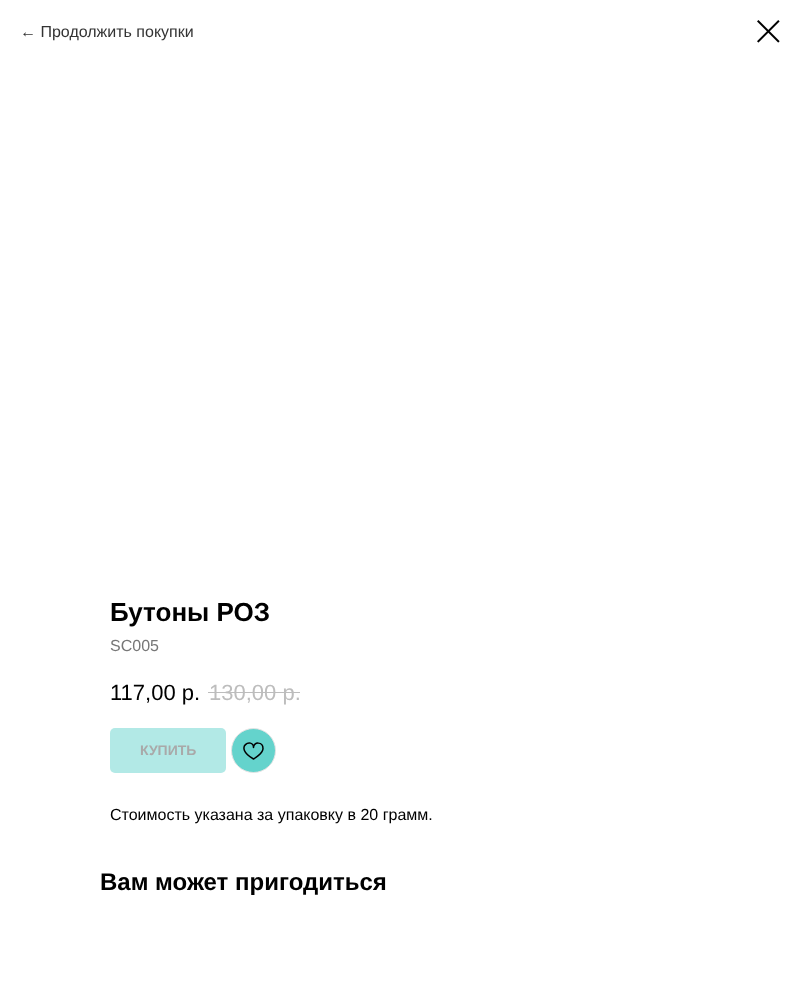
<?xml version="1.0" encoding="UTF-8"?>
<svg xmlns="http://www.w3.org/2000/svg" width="800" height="987">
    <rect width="100%" height="100%" fill="#FFFFFF"/>
    <text x="20" y="37" font-family="Liberation Sans" font-size="16" fill="#333333">← Продолжить покупки</text>
    <image x="757" y="20" width="23" height="23" href="img_01.png"/>
    <text x="110" y="621" font-family="Liberation Sans" font-size="26" font-weight="700" fill="#000000">Бутоны РОЗ</text>
    <text x="110" y="651" font-family="Liberation Sans" font-size="16" fill="#777777">SC005</text>
    <text x="110" y="700" font-family="Liberation Sans" font-size="22" fill="#000000">117,00 р.</text>
    <text x="209" y="700" font-family="Liberation Sans" font-size="22" fill="#BDBDBD">130,00 р.</text>
    <rect x="208" y="692" width="92" height="1" fill="#BDBDBD"/>
    <rect x="110" y="728" width="116" height="45" rx="5" fill="#B2E9E6"/>
    <text x="140" y="755" font-family="Liberation Sans" font-size="14" font-weight="700" fill="#A9A9A9">КУПИТЬ</text>
    <circle cx="253.5" cy="750.5" r="22" fill="#64D3CC" stroke="#E4E4E4"/>
    <path d="M 263 748.5 C 263 753.5 253.5 759 253.5 759 C 232 746.5 253.5 737 253.5 747.5 C 253.5 741.5 263 741.5 263 748.5 Z" fill="none" stroke="#000000" stroke-width="1.5" stroke-linejoin="round"/>
    <text x="110" y="820" font-family="Liberation Sans" font-size="16" fill="#000000">Стоимость указана за упаковку в 20 грамм.</text>
    <text x="100" y="890" font-family="Liberation Sans" font-size="24" font-weight="700" fill="#000000">Вам может пригодиться</text>
</svg>
